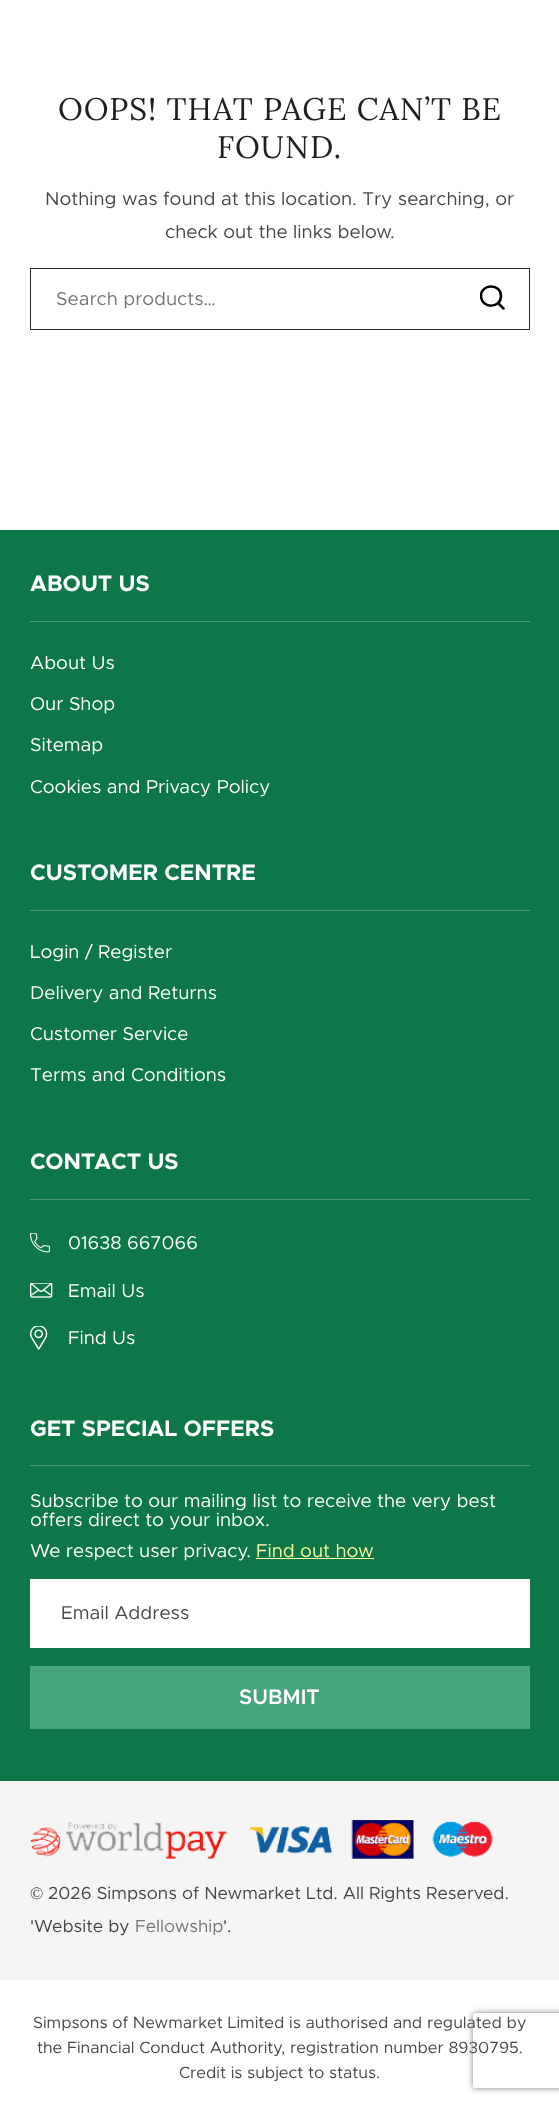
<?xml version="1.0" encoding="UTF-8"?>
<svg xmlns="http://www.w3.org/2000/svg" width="559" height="2105">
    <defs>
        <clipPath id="clip1"><rect x="480" y="285" width="25" height="25"/></clipPath>
        <clipPath id="clip2"><path d="M 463 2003 H 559 V 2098 H 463 Z M 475.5 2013 H 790.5 C 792 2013 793 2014 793 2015.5 V 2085.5 C 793 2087 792 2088 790.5 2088 H 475.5 C 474 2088 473 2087 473 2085.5 V 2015.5 C 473 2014 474 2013 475.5 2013 Z" clip-rule="evenodd"/></clipPath>
        <filter id="blur1" x="-50%" y="-200%" width="200%" height="500%"><feGaussianBlur stdDeviation="3"/></filter>
    </defs>
    <rect width="100%" height="100%" fill="#FFFFFF"/>
    <text x="58" y="120" font-family="Lora" font-size="31.25" letter-spacing="1" fill="#1F1F1F">OOPS! THAT PAGE CAN’T BE</text>
    <text x="217" y="158" font-family="Lora" font-size="31.25" letter-spacing="1" fill="#1F1F1F">FOUND.</text>
    <text x="45" y="205" font-family="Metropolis" font-size="18.75" fill="#464646">Nothing was found at this location. Try searching, or</text>
    <text x="165" y="238" font-family="Metropolis" font-size="18.75" fill="#464646">check out the links below.</text>
    <rect x="30.5" y="268.5" width="499" height="61" fill="none" stroke="#2A2A2A"/>
    <text x="56" y="305" font-family="Metropolis" font-size="18.75" fill="#757575">Search products…</text>
    <g clip-path="url(#clip1)">
        <path d="M 501 296 C 501 308.5 482 309 481 296.5 C 480.5 283.5 501 283 501 296 Z" fill="none" stroke="#000000" stroke-width="2.5" stroke-linecap="round" stroke-linejoin="round"/>
    </g>
    <path d="M 503.5 308.5 L 498 303" fill="none" stroke="#000000" stroke-width="2.5" stroke-linecap="round" stroke-linejoin="round"/>
    <rect x="0" y="530" width="559" height="1251" fill="#0D7748"/>
    <rect x="30" y="621" width="500" height="1" fill="#4A9976"/>
    <text x="30" y="591" font-family="Metropolis" font-size="22.5" font-weight="700" fill="#FFFFFF">ABOUT US</text>
    <text x="30" y="669" font-family="Metropolis" font-size="18.75" fill="#FFFFFF">About Us</text>
    <text x="30" y="710" font-family="Metropolis" font-size="18.75" fill="#FFFFFF">Our Shop</text>
    <text x="30" y="751" font-family="Metropolis" font-size="18.75" fill="#FFFFFF">Sitemap</text>
    <text x="30" y="793" font-family="Metropolis" font-size="18.75" fill="#FFFFFF">Cookies and Privacy Policy</text>
    <rect x="30" y="910" width="500" height="1" fill="#4A9976"/>
    <text x="30" y="880" font-family="Metropolis" font-size="22.5" font-weight="700" fill="#FFFFFF">CUSTOMER CENTRE</text>
    <text x="30" y="958" font-family="Metropolis" font-size="18.75" fill="#FFFFFF">Login / Register</text>
    <text x="30" y="999" font-family="Metropolis" font-size="18.75" fill="#FFFFFF">Delivery and Returns</text>
    <text x="30" y="1040" font-family="Metropolis" font-size="18.75" fill="#FFFFFF">Customer Service</text>
    <text x="30" y="1081" font-family="Metropolis" font-size="18.75" fill="#FFFFFF">Terms and Conditions</text>
    <rect x="30" y="1199" width="500" height="1" fill="#4A9976"/>
    <text x="30" y="1169" font-family="Metropolis" font-size="22.5" font-weight="700" fill="#FFFFFF">CONTACT US</text>
    <image x="30" y="1233" width="20" height="20" href="img_01.png"/>
    <text x="68" y="1249" font-family="Metropolis" font-size="18.75" fill="#FFFFFF">01638 667066</text>
    <image x="30" y="1283" width="23" height="15" href="img_02.png"/>
    <text x="68" y="1297" font-family="Metropolis" font-size="18.75" fill="#FFFFFF">Email Us</text>
    <image x="30" y="1326" width="18" height="24" href="img_03.png"/>
    <text x="68" y="1344" font-family="Metropolis" font-size="18.75" fill="#FFFFFF">Find Us</text>
    <rect x="30" y="1465" width="500" height="1" fill="#4A9976"/>
    <text x="30" y="1436" font-family="Metropolis" font-size="22.5" font-weight="700" fill="#FFFFFF">GET SPECIAL OFFERS</text>
    <text font-family="Metropolis" font-size="18.75" fill="#FFFFFF">
        <tspan x="30" y="1507">Subscribe to our mailing list to receive the very best</tspan>
        <tspan x="30" y="1526">offers direct to your inbox.</tspan>
        <tspan x="30" y="1557">We respect user privacy.</tspan>
    </text>
    <text x="256" y="1557" font-family="Metropolis" font-size="18.75" fill="#FBF9A4">Find out how</text>
    <rect x="256" y="1558" width="118" height="1" fill="#FBF9A4"/>
    <rect x="30" y="1579" width="500" height="69" fill="#FFFFFF"/>
    <text x="61" y="1619" font-family="Metropolis" font-size="18.75" fill="#464646">Email Address</text>
    <rect x="30" y="1666" width="500" height="63" fill="#47A57B"/>
    <text x="239" y="1704" font-family="Metropolis" font-size="21" font-weight="600" fill="#FFFFFF">SUBMIT</text>
    <rect x="0" y="1781" width="559" height="199" fill="#F5F5F5"/>
    <image x="30" y="1820" width="463" height="39" href="img_04.png"/>
    <text x="30" y="1899" font-family="Liberation Serif" font-size="17.5" fill="#464646">©</text>
    <text x="48" y="1899" font-family="Metropolis" font-size="17.5" fill="#464646">2026 Simpsons of Newmarket Ltd. All Rights Reserved.</text>
    <text x="30" y="1932" font-family="Metropolis" font-size="17.5" fill="#464646">'Website by</text>
    <text x="135" y="1932" font-family="Metropolis" font-size="17.5" fill="#757575">Fellowship</text>
    <text x="223" y="1932" font-family="Metropolis" font-size="17.5" fill="#464646">'.</text>
    <text x="33" y="2028" font-family="Metropolis" font-size="16.25" fill="#464646">Simpsons of Newmarket Limited is authorised and regulated by</text>
    <text x="37" y="2053" font-family="Metropolis" font-size="16.25" fill="#464646">the Financial Conduct Authority, registration number 8930795.</text>
    <text x="179" y="2078" font-family="Metropolis" font-size="16.25" fill="#464646">Credit is subject to status.</text>
    <g clip-path="url(#clip2)">
        <rect x="473" y="2013" width="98" height="75" rx="2.5" fill="#808080" filter="url(#blur1)"/>
    </g>
</svg>
